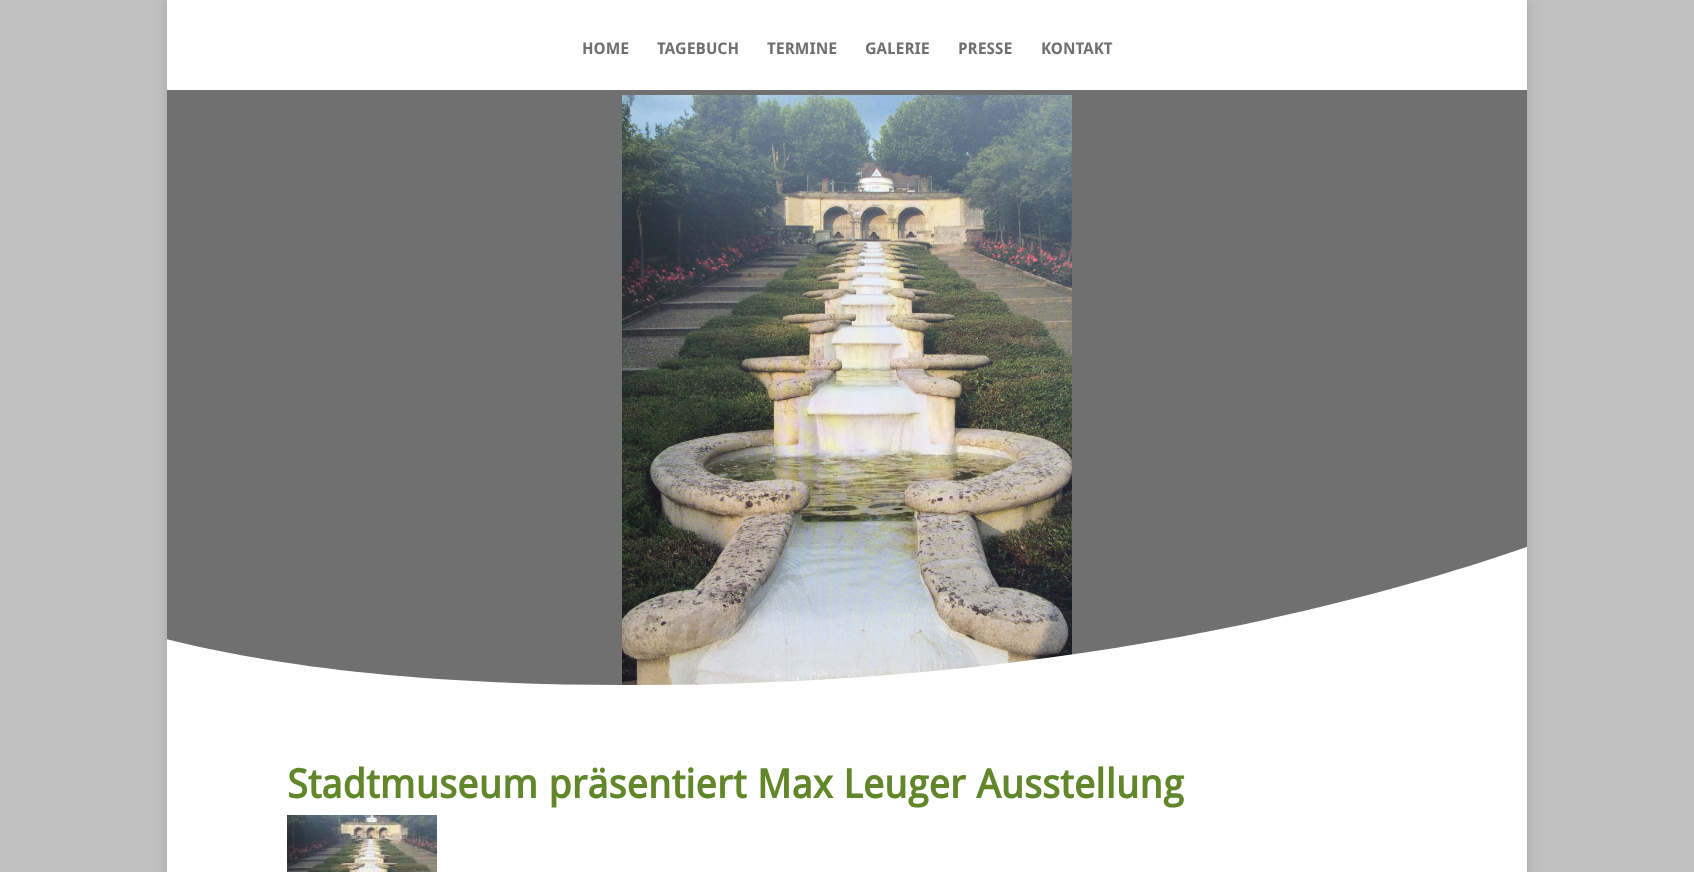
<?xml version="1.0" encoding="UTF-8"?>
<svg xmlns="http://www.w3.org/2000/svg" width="1694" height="872">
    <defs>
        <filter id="blur1" x="-50%" y="-200%" width="200%" height="500%"><feGaussianBlur stdDeviation="6"/></filter>
        <clipPath id="clip1"><rect x="167" y="376" width="1360" height="320"/></clipPath>
    </defs>
    <rect width="100%" height="100%" fill="#C0C0C0"/>
    <rect x="167" y="0" width="1360" height="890" fill="#000000" fill-opacity="0.15" filter="url(#blur1)"/>
    <rect x="167" y="0" width="1360" height="872" fill="#FFFFFF"/>
    <text x="582" y="54" font-family="'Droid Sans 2'" font-size="16" font-weight="700" fill="#707070">HOME</text>
    <text x="657" y="54" font-family="'Droid Sans 2'" font-size="16" font-weight="700" fill="#707070">TAGEBUCH</text>
    <text x="767" y="54" font-family="'Droid Sans 2'" font-size="16" font-weight="700" fill="#707070">TERMINE</text>
    <text x="865" y="54" font-family="'Droid Sans 2'" font-size="16" font-weight="700" fill="#707070">GALERIE</text>
    <text x="958" y="54" font-family="'Droid Sans 2'" font-size="16" font-weight="700" fill="#707070">PRESSE</text>
    <text x="1041" y="54" font-family="'Droid Sans 2'" font-size="16" font-weight="700" fill="#707070">KONTAKT</text>
    <rect x="167" y="90" width="1360" height="595" fill="#707070"/>
    <image x="622" y="95" width="450" height="590" href="img_01.png"/>
    <g clip-path="url(#clip1)">
        <path d="M 620 685 C 1360 689 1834 436 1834 376 V 696 H -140 V 376 C -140 437 -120 683 620 685 Z" fill="#FFFFFF"/>
    </g>
    <text x="287" y="798" font-family="Droid Sans" font-size="40" font-weight="700" fill="#62872B">Stadtmuseum präsentiert Max Leuger Ausstellung</text>
    <image x="287" y="815" width="150" height="57" href="img_02.png"/>
</svg>
